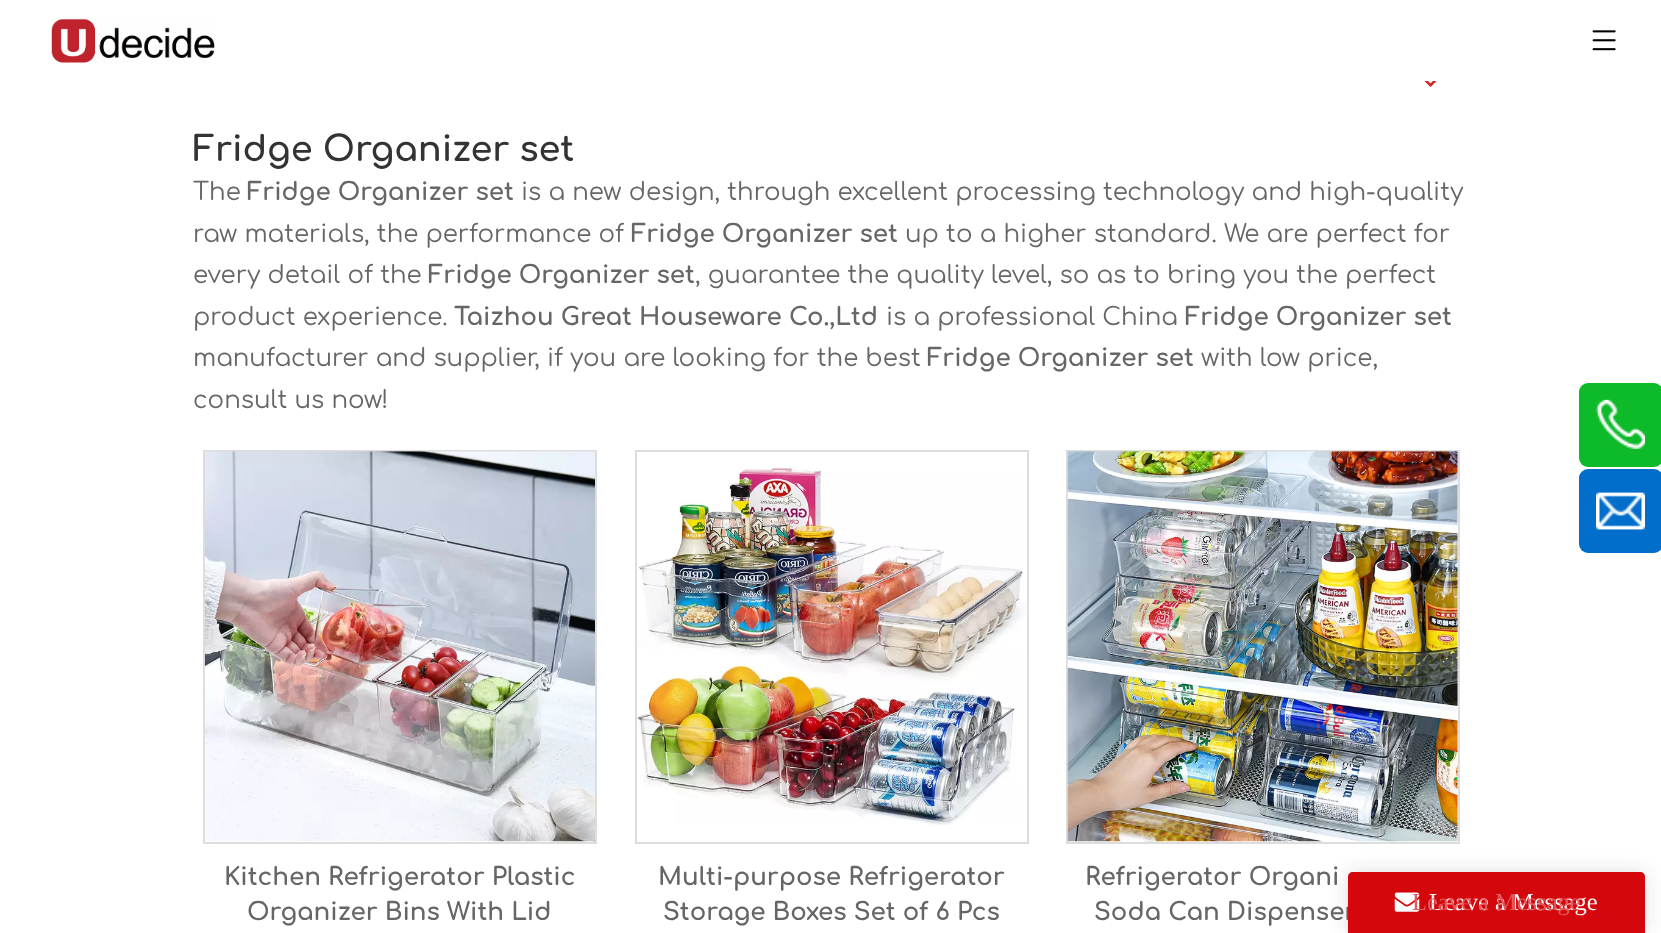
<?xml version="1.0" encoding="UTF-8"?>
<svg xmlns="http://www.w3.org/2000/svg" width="1661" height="933">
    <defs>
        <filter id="blur1" x="-50%" y="-200%" width="200%" height="500%"><feGaussianBlur stdDeviation="9"/></filter>
    </defs>
    <rect width="100%" height="100%" fill="#FFFFFF"/>
    <image x="51" y="18" width="164" height="45" href="img_01.png"/>
    <image x="1592" y="30" width="24" height="21" href="img_02.png"/>
    <image x="1424" y="81" width="13" height="6" href="img_03.png"/>
    <text x="193" y="161" font-family="Comfortaa" font-size="35" font-weight="700" fill="#333333">Fridge Organizer set</text>
    <text x="193" y="200" font-family="Comfortaa" font-size="24.5" fill="#666666">The</text>
    <text x="247" y="200" font-family="Comfortaa" font-size="24.5" font-weight="700" fill="#666666">Fridge Organizer set</text>
    <text x="521" y="200" font-family="Comfortaa" font-size="24.5" fill="#666666">is a new design, through excellent processing technology and high-quality</text>
    <text x="193" y="242" font-family="Comfortaa" font-size="24.5" fill="#666666">raw materials, the performance of</text>
    <text x="631" y="242" font-family="Comfortaa" font-size="24.5" font-weight="700" fill="#666666">Fridge Organizer set</text>
    <text x="905" y="242" font-family="Comfortaa" font-size="24.5" fill="#666666">up to a higher standard. We are perfect for</text>
    <text x="193" y="283" font-family="Comfortaa" font-size="24.5" fill="#666666">every detail of the</text>
    <text x="428" y="283" font-family="Comfortaa" font-size="24.5" font-weight="700" fill="#666666">Fridge Organizer set</text>
    <text x="695" y="283" font-family="Comfortaa" font-size="24.5" fill="#666666">, guarantee the quality level, so as to bring you the perfect</text>
    <text x="193" y="325" font-family="Comfortaa" font-size="24.5" fill="#666666">product experience.</text>
    <text x="454" y="325" font-family="Comfortaa" font-size="24.5" font-weight="700" fill="#666666">Taizhou Great Houseware Co.,Ltd</text>
    <text x="886" y="325" font-family="Comfortaa" font-size="24.5" fill="#666666">is a professional China</text>
    <text x="1185" y="325" font-family="Comfortaa" font-size="24.5" font-weight="700" fill="#666666">Fridge Organizer set</text>
    <text x="193" y="366" font-family="Comfortaa" font-size="24.5" fill="#666666">manufacturer and supplier, if you are looking for the best</text>
    <text x="927" y="366" font-family="Comfortaa" font-size="24.5" font-weight="700" fill="#666666">Fridge Organizer set</text>
    <text x="1201" y="366" font-family="Comfortaa" font-size="24.5" fill="#666666">with low price,</text>
    <text x="193" y="408" font-family="Comfortaa" font-size="24.5" fill="#666666">consult us now!</text>
    <rect x="204" y="451" width="392" height="392" fill="none" stroke="#DDDDDD" stroke-width="2"/>
    <image x="204" y="451" width="391" height="391" href="img_04.png"/>
    <text x="224" y="885" font-family="Comfortaa" font-size="24.5" font-weight="700" fill="#666666">Kitchen Refrigerator Plastic</text>
    <text x="247" y="920" font-family="Comfortaa" font-size="24.5" font-weight="700" fill="#666666">Organizer Bins With Lid</text>
    <rect x="636" y="451" width="392" height="392" fill="none" stroke="#DDDDDD" stroke-width="2"/>
    <image x="637" y="467" width="390" height="358" href="img_05.png"/>
    <text x="658" y="885" font-family="Comfortaa" font-size="24.5" font-weight="700" fill="#666666">Multi-purpose Refrigerator</text>
    <text x="663" y="920" font-family="Comfortaa" font-size="24.5" font-weight="700" fill="#666666">Storage Boxes Set of 6 Pcs</text>
    <rect x="1067" y="451" width="392" height="392" fill="none" stroke="#DDDDDD" stroke-width="2"/>
    <image x="1067" y="451" width="391" height="391" href="img_06.png"/>
    <text x="1085" y="885" font-family="Comfortaa" font-size="24.5" font-weight="700" fill="#666666">Refrigerator Organi</text>
    <text x="1094" y="920" font-family="Comfortaa" font-size="24.5" font-weight="700" fill="#666666">Soda Can Dispenser</text>
    <rect x="1579" y="383" width="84" height="84" rx="9" fill="#0DBA2A"/>
    <image x="1596" y="399" width="49" height="50" href="img_07.png"/>
    <rect x="1579" y="469" width="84" height="84" rx="9" fill="#016ECB"/>
    <image x="1596" y="492" width="49" height="38" href="img_08.png"/>
    <rect x="1348" y="872" width="297" height="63" rx="5" fill="#444444" fill-opacity="0.18" filter="url(#blur1)"/>
    <path d="M 1353 872 H 1640 C 1643 872 1645 874 1645 877 V 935 H 1348 V 877 C 1348 874 1350 872 1353 872 Z" fill="#D4070C"/>
    <image x="1394" y="892" width="26" height="20" href="img_09.png"/>
    <text x="1429" y="910" font-family="Liberation Serif" font-size="24.5" fill="#FFFFFF">Leave a Message</text>
    <text x="1412" y="910" font-family="Liberation Serif" font-size="24.5" fill="#E2595D">Leave a Message</text>
</svg>
